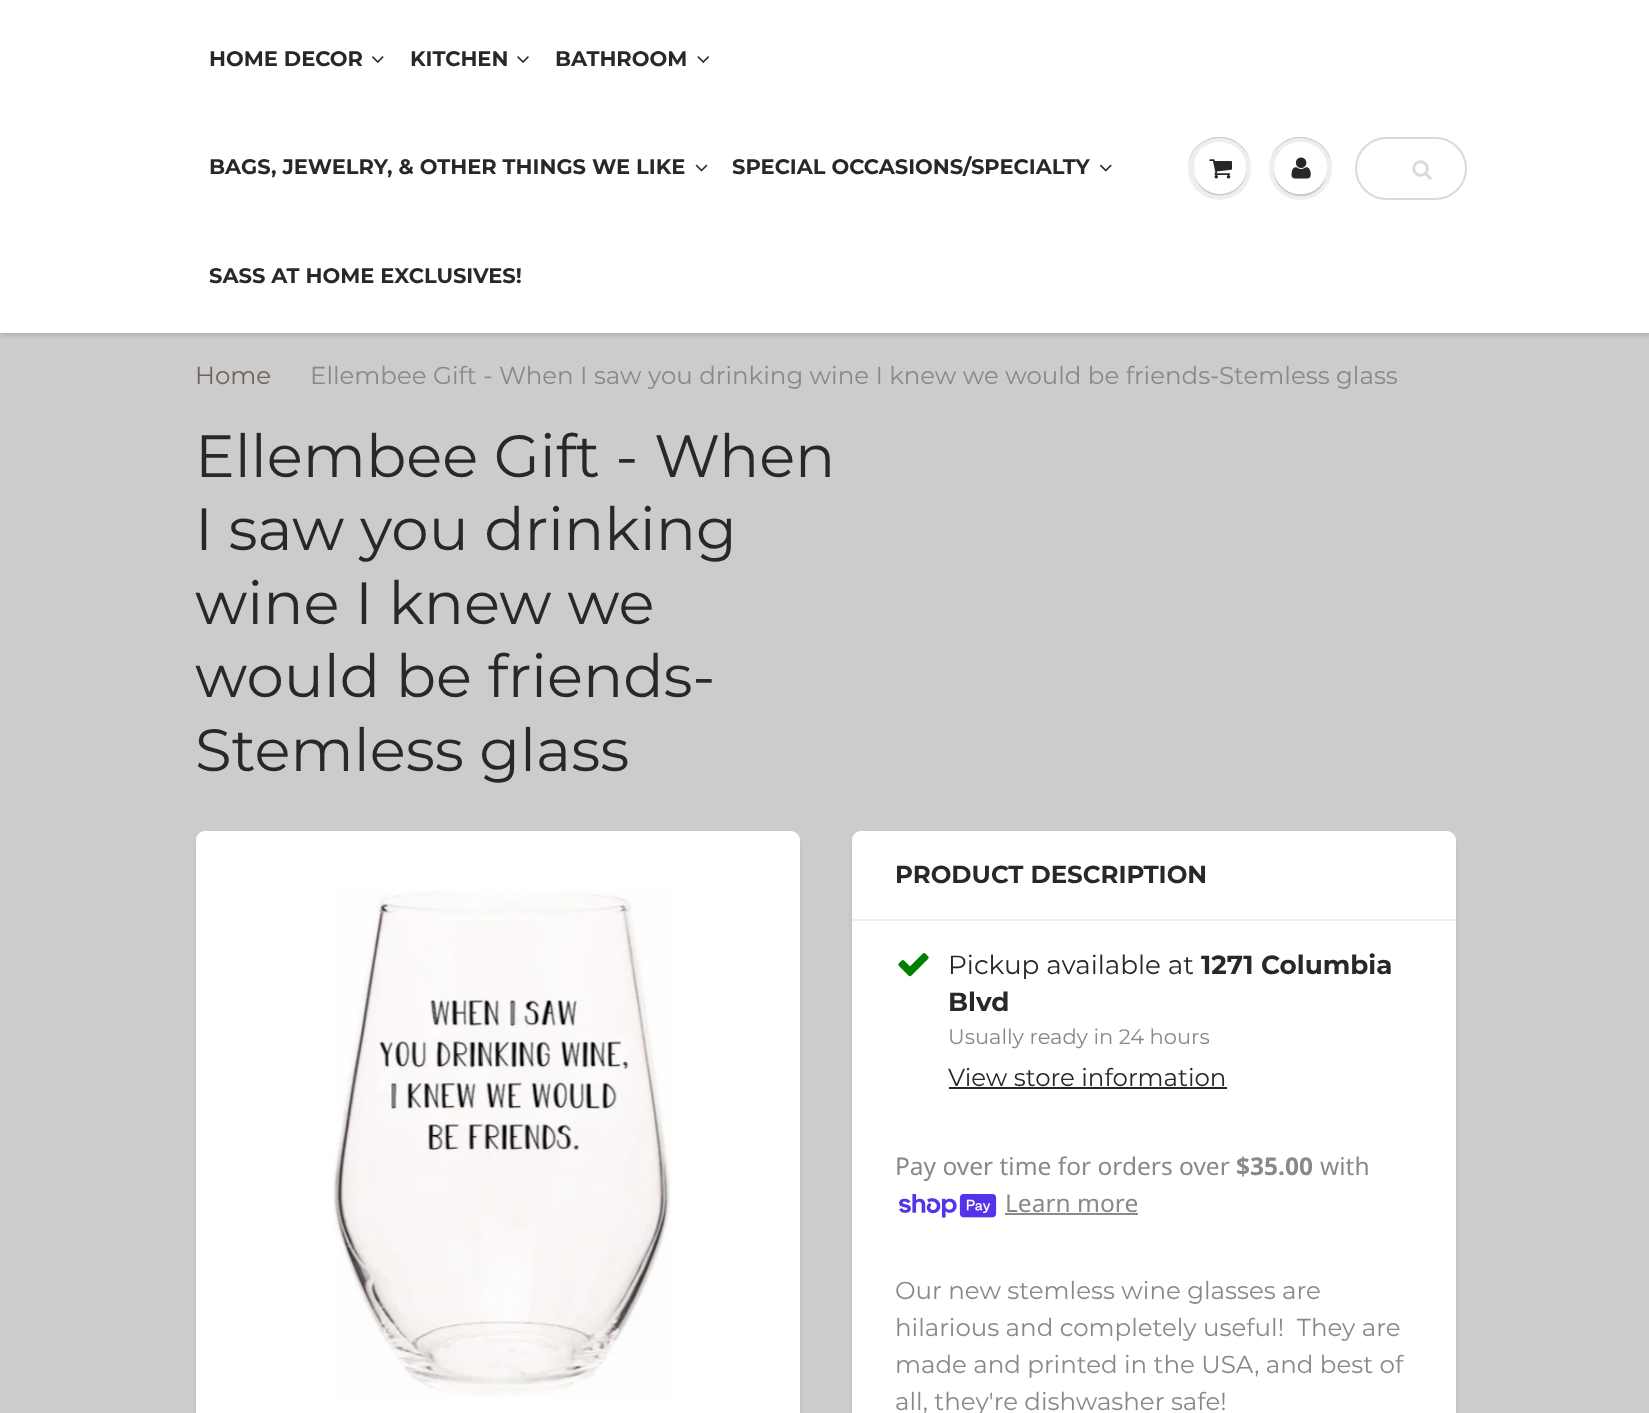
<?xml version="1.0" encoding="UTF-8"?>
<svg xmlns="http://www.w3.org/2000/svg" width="1649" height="1413">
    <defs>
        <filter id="blur1" x="-50%" y="-200%" width="200%" height="500%"><feGaussianBlur stdDeviation="2"/></filter>
    </defs>
    <rect width="100%" height="100%" fill="#FFFFFF"/>
    <rect x="0" y="333" width="1649" height="1080" fill="#CCCCCC"/>
    <rect x="0" y="5" width="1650" height="331" fill="#0B191C" fill-opacity="0.12" filter="url(#blur1)"/>
    <rect x="0" y="2" width="1649" height="331" fill="#FFFFFF"/>
    <text x="209" y="66" font-family="Montserrat" font-size="21" font-weight="700" fill="#282827">HOME DECOR</text>
    <image x="372" y="56" width="12" height="7" href="img_01.png"/>
    <text x="410" y="66" font-family="Montserrat" font-size="21" font-weight="700" fill="#282827">KITCHEN</text>
    <image x="517" y="56" width="12" height="7" href="img_02.png"/>
    <text x="555" y="66" font-family="Montserrat" font-size="21" font-weight="700" fill="#282827">BATHROOM</text>
    <image x="697" y="56" width="12" height="7" href="img_03.png"/>
    <text x="209" y="174" font-family="Montserrat" font-size="21" font-weight="700" fill="#282827">BAGS, JEWELRY, &amp; OTHER THINGS WE LIKE</text>
    <image x="695" y="164" width="13" height="8" href="img_04.png"/>
    <text x="732" y="174" font-family="Montserrat" font-size="21" font-weight="700" fill="#282827">SPECIAL OCCASIONS/SPECIALTY</text>
    <image x="1099" y="164" width="13" height="8" href="img_05.png"/>
    <text x="209" y="283" font-family="Montserrat" font-size="21" font-weight="700" fill="#282827">SASS AT HOME EXCLUSIVES!</text>
    <circle cx="1219.5" cy="168.5" r="31.5" fill="#EDEFEF"/>
    <path d="M 1220 138 C 1237 138 1251 152 1251 169 C 1251 163 1249 156 1246 151 C 1228 125 1187 138 1188 169 C 1188 152 1202 138 1220 138 Z M 1195 175 C 1201 206 1247 200 1246 169 C 1245 198 1203 203 1195 175 Z" fill="#C9CBCB"/>
    <circle cx="1220" cy="168" r="26" fill="#FFFFFF"/>
    <path d="M 1220 144 C 1234 144 1245 155 1246 169 C 1247 143 1213 132 1198 153 C 1195 158 1194 163 1194 169 C 1195 154 1205 144 1220 144 Z" fill="#FFFFFF"/>
    <image x="1209" y="159" width="23" height="20" href="img_06.png"/>
    <circle cx="1300.5" cy="168.5" r="31.5" fill="#EDEFEF"/>
    <path d="M 1300 138 C 1318 138 1332 152 1332 169 C 1333 138 1292 125 1274 151 C 1271 156 1269 163 1269 169 C 1269 152 1283 138 1300 138 Z" fill="#C9CBCB"/>
    <path d="M 1274 169 C 1273 198 1314 207 1325 180 C 1327 175 1328 168 1326 163 C 1332 190 1295 206 1279 183 C 1276 179 1274 174 1274 169 Z" fill="#C9CBCB"/>
    <rect x="1274" y="142" width="53" height="52" rx="26" fill="#FFFFFF"/>
    <path d="M 1300 144 C 1319 144 1331 163 1324 180 C 1338 154 1303 128 1282 150 C 1277 155 1274 162 1274 169 C 1275 155 1286 144 1300 144 Z" fill="#FFFFFF"/>
    <image x="1291" y="157" width="20" height="22" href="img_07.png"/>
    <rect x="1356" y="138" width="110" height="61" rx="30.5" fill="none" stroke="#D7DBDB" stroke-width="2"/>
    <image x="1412" y="160" width="20" height="20" href="img_08.png"/>
    <text x="195" y="384" font-family="Montserrat" font-size="24.5" fill="#70635D">Home</text>
    <text x="310" y="384" font-family="Montserrat" font-size="24.5" fill="#898989">Ellembee Gift - When I saw you drinking wine I knew we would be friends-Stemless glass</text>
    <text font-family="Montserrat" font-size="59.5" fill="#282827">
        <tspan x="195" y="477">Ellembee Gift - When</tspan>
        <tspan x="195" y="550">I saw you drinking</tspan>
        <tspan x="195" y="624">wine I knew we</tspan>
        <tspan x="195" y="697">would be friends-</tspan>
        <tspan x="195" y="771">Stemless glass</tspan>
    </text>
    <rect x="196" y="835" width="604" height="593" rx="9" fill="#0B191C" fill-opacity="0.1" filter="url(#blur1)"/>
    <rect x="196" y="831" width="604" height="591" rx="9" fill="#FFFFFF"/>
    <image x="333" y="890" width="339" height="507" href="img_09.png"/>
    <rect x="852" y="835" width="604" height="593" rx="9" fill="#0B191C" fill-opacity="0.1" filter="url(#blur1)"/>
    <rect x="852" y="831" width="604" height="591" rx="9" fill="#FFFFFF"/>
    <rect x="852" y="919" width="604" height="2" fill="#EFEFEF"/>
    <text x="895" y="883" font-family="Montserrat" font-size="24.5" font-weight="700" fill="#282827">PRODUCT DESCRIPTION</text>
    <image x="898" y="953" width="31" height="24" href="img_10.png"/>
    <text x="948" y="974" font-family="Montserrat" font-size="26.25" fill="#282827">Pickup available at</text>
    <text x="1201" y="974" font-family="Montserrat" font-size="26.25" font-weight="700" fill="#282827">1271 Columbia</text>
    <text x="948" y="1011" font-family="Montserrat" font-size="26.25" font-weight="700" fill="#282827">Blvd</text>
    <text x="948" y="1044" font-family="Montserrat" font-size="21" fill="#898989">Usually ready in 24 hours</text>
    <text x="948" y="1086" font-family="Montserrat" font-size="24.5" fill="#282827">View store information</text>
    <rect x="949" y="1087" width="278" height="2" fill="#282727"/>
    <text x="895" y="1175" font-family="Noto Sans" font-size="24.5" fill="#898989">Pay over time for orders over</text>
    <text x="1236" y="1175" font-family="Noto Sans" font-size="24.5" font-weight="700" fill="#898989">$35.00</text>
    <text x="1320" y="1175" font-family="Noto Sans" font-size="24.5" fill="#898989">with</text>
    <image x="899" y="1194" width="98" height="24" href="img_11.png"/>
    <text x="1005" y="1212" font-family="Noto Sans" font-size="24.5" fill="#898989">Learn more</text>
    <rect x="1005" y="1213" width="133" height="2" fill="#898989"/>
    <text font-family="Montserrat" font-size="24.5" fill="#898989" xml:space="preserve"><tspan x="895" y="1299">Our new stemless wine glasses are</tspan><tspan x="895" y="1336">hilarious and completely useful!  They are</tspan><tspan x="895" y="1373">made and printed in the USA, and best of</tspan><tspan x="895" y="1410">all, they're dishwasher safe!</tspan></text>
</svg>
